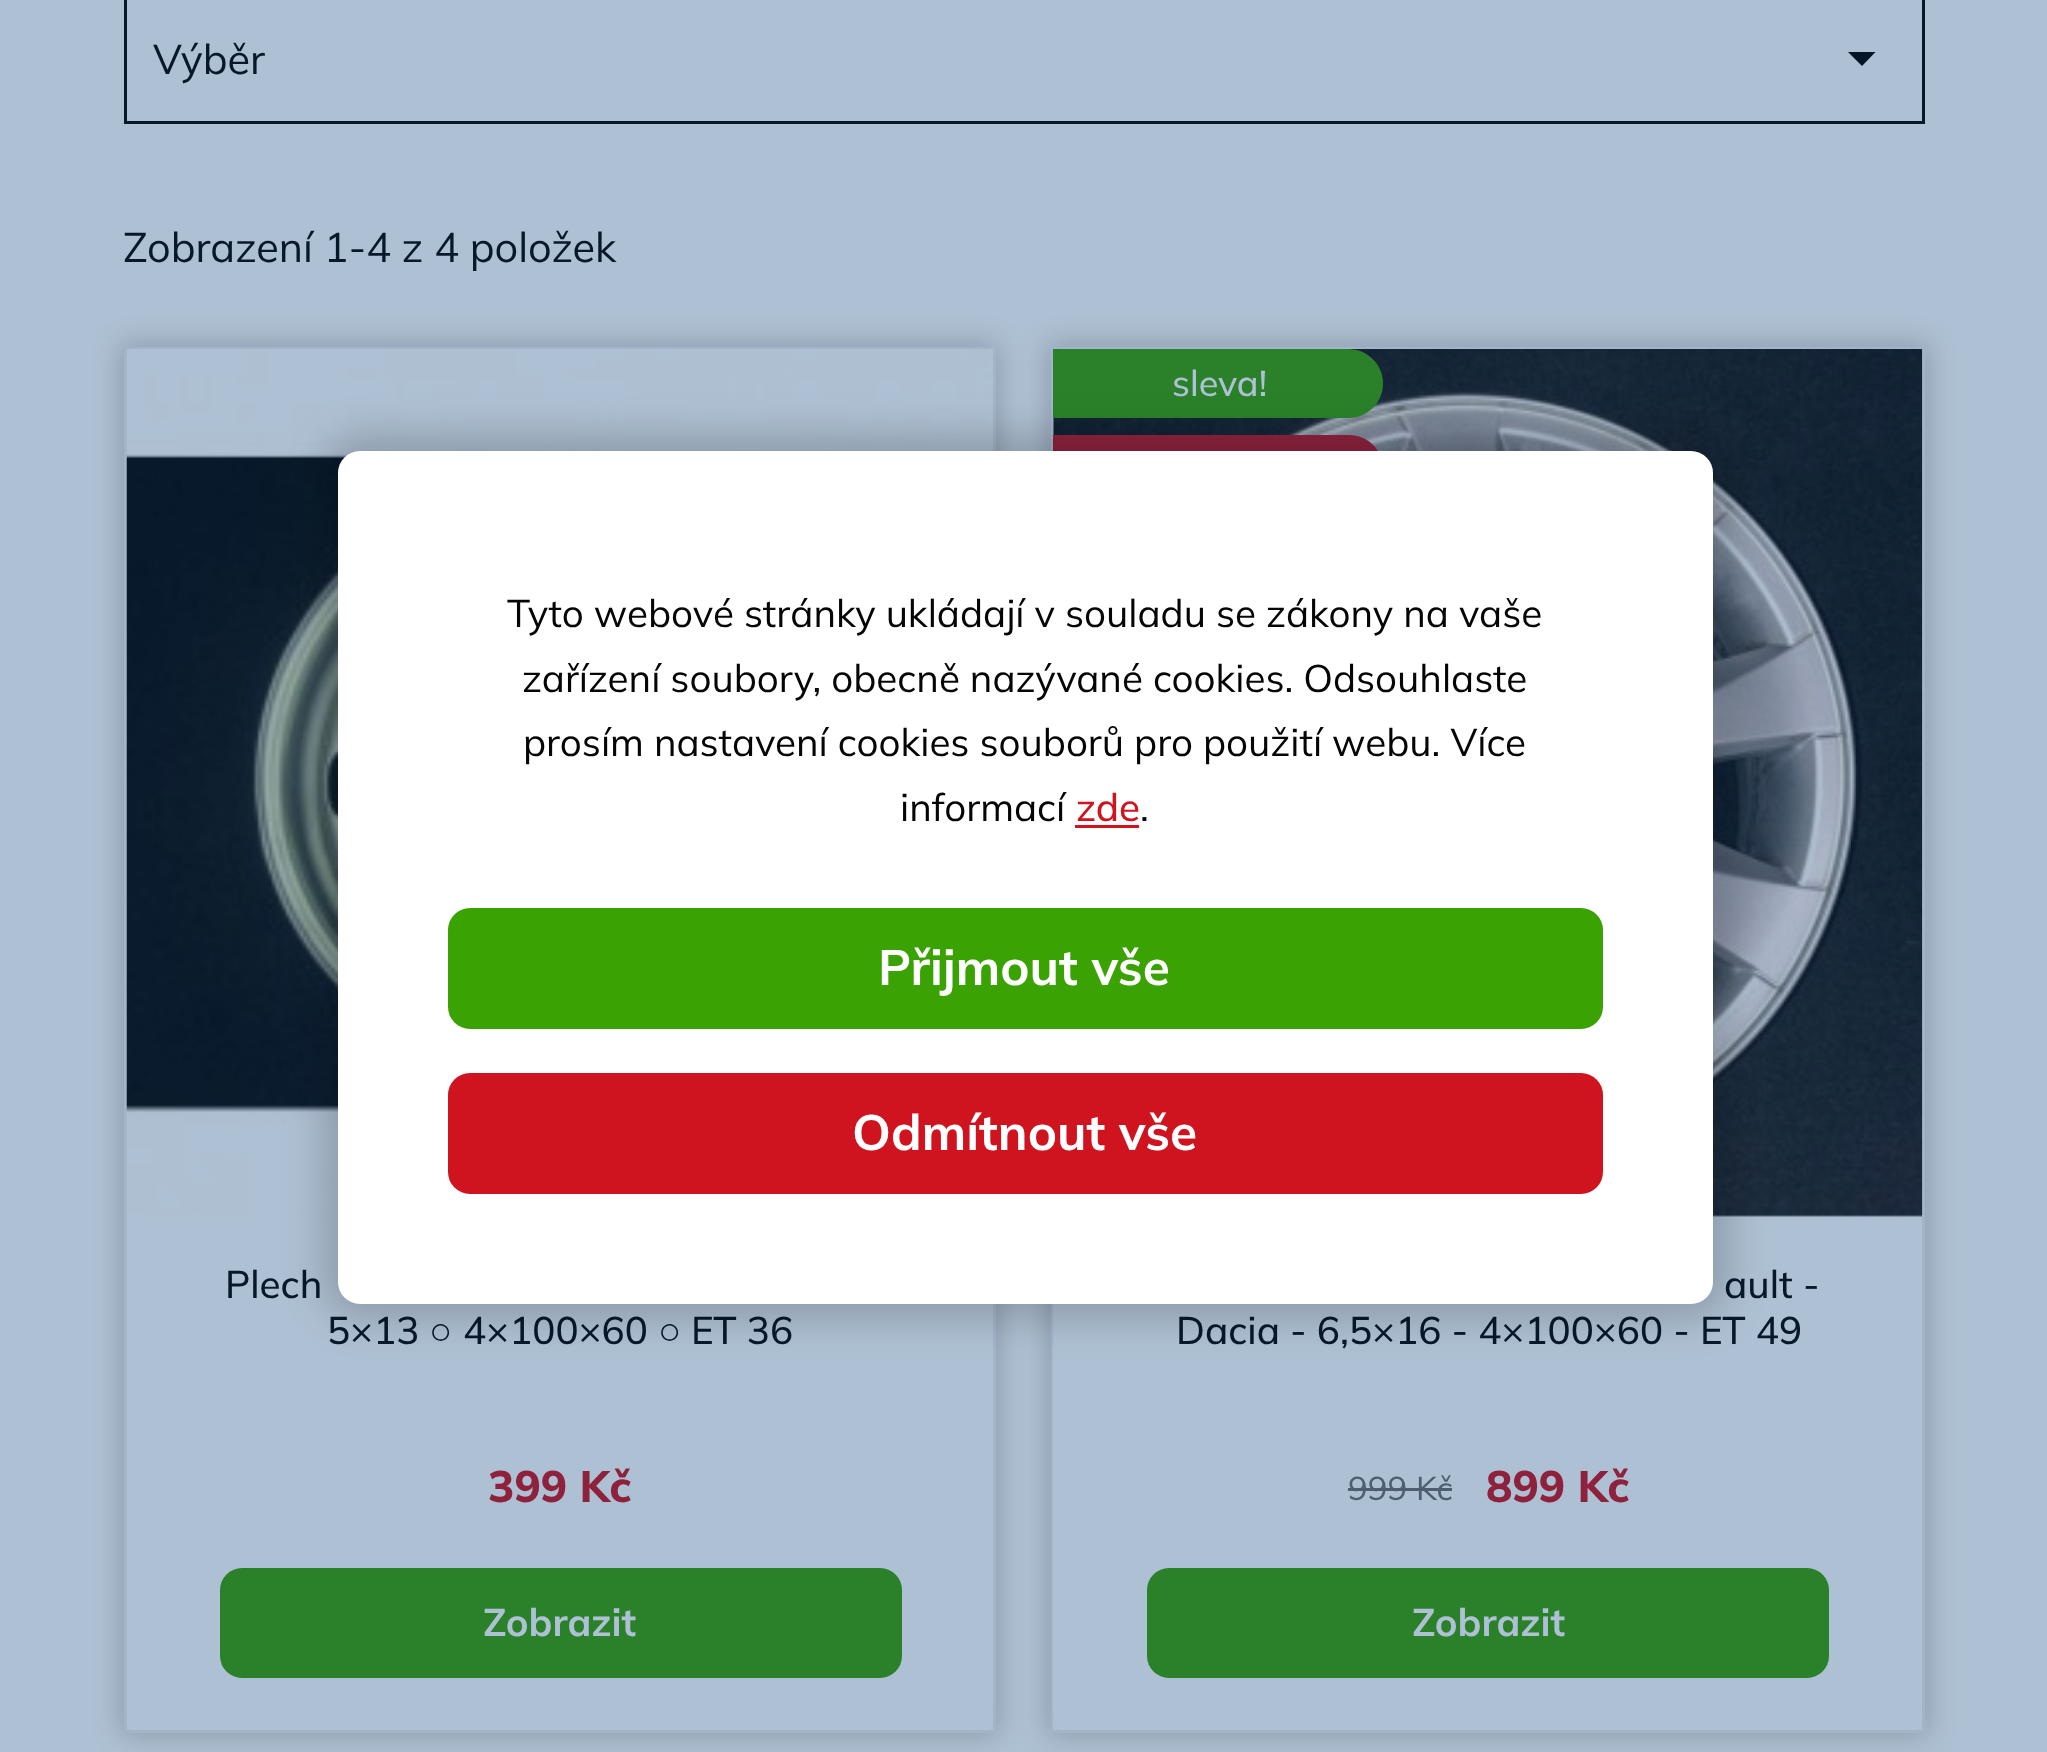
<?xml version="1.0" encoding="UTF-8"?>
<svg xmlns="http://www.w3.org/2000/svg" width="2047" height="1752">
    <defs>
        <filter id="blur1" x="-50%" y="-200%" width="200%" height="500%"><feGaussianBlur stdDeviation="14"/></filter>
        <filter id="blur2" x="-50%" y="-200%" width="200%" height="500%"><feGaussianBlur stdDeviation="20.5"/></filter>
    </defs>
    <rect width="100%" height="100%" fill="#AEC0D3"/>
    <rect x="125.5" y="-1.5" width="1798" height="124" fill="none" stroke="#07182B" stroke-width="3"/>
    <text x="153" y="74" font-family="Mulish" font-size="41.4" fill="#07182B">Výběr</text>
    <path d="M 1848 52 H 1875.5 L 1862 66 Z" fill="#041528"/>
    <text x="123" y="262" font-family="Mulish" font-size="41.4" fill="#07182B">Zobrazení 1-4 z 4 položek</text>
    <rect x="121" y="344" width="877" height="1391" fill="#041528" fill-opacity="0.2" filter="url(#blur1)"/>
    <rect x="125.5" y="348.5" width="869" height="1383" fill="none" stroke="#A3B4C7" stroke-width="3"/>
    <rect x="127" y="349" width="866" height="1381" fill="#AEC0D3"/>
    <image x="126" y="349" width="867" height="869" href="img_01.png"/>
    <text x="225" y="1298" font-family="Mulish" font-size="38.5" font-weight="500" fill="#07182B">Plech</text>
    <text x="327" y="1344" font-family="Mulish" font-size="38.5" font-weight="500" fill="#07182B">5×13</text>
    <text x="429" y="1344" font-family="Liberation Sans" font-size="38.5" fill="#07182B">○</text>
    <text x="463" y="1344" font-family="Mulish" font-size="38.5" font-weight="500" fill="#07182B">4×100×60</text>
    <text x="658" y="1344" font-family="Liberation Sans" font-size="38.5" fill="#07182B">○</text>
    <text x="691" y="1344" font-family="Mulish" font-size="38.5" font-weight="500" fill="#07182B">ET 36</text>
    <text x="488" y="1502" font-family="Mulish" font-size="44" font-weight="800" fill="#8E223D">399 Kč</text>
    <rect x="220" y="1568" width="682" height="110" rx="22" fill="#2A8129"/>
    <text x="483" y="1636" font-family="Mulish" font-size="38.5" font-weight="700" fill="#AEC0D3">Zobrazit</text>
    <rect x="1048" y="344" width="880" height="1391" fill="#041528" fill-opacity="0.2" filter="url(#blur1)"/>
    <rect x="1052.5" y="348.5" width="871" height="1383" fill="none" stroke="#A3B4C7" stroke-width="3"/>
    <rect x="1053" y="418" width="869" height="1312" fill="#AEC0D3"/>
    <image x="1053" y="349" width="870" height="869" href="img_02.png"/>
    <path d="M 1053 349 H 1348.5 C 1367.5 349 1383 364.5 1383 383.5 C 1383 402.5 1367.5 418 1348.5 418 H 1053 Z" fill="#2A8129"/>
    <text x="1172" y="396" font-family="Mulish" font-size="36" font-weight="500" fill="#AEC0D3">sleva!</text>
    <path d="M 1053 435 H 1349 C 1368 435 1383 450 1383 469 C 1383 488 1368 503 1349 503 H 1053 Z" fill="#8E223D"/>
    <text x="1724" y="1298" font-family="Mulish" font-size="38.5" font-weight="500" fill="#07182B">ault -</text>
    <text x="1176" y="1344" font-family="Mulish" font-size="38.5" font-weight="500" fill="#07182B">Dacia - 6,5×16 - 4×100×60 - ET 49</text>
    <text x="1348" y="1500" font-family="Mulish" font-size="33" fill="#4D5E71">999 Kč</text>
    <rect x="1348" y="1488" width="104" height="3" fill="#4D5E71"/>
    <text x="1486" y="1502" font-family="Mulish" font-size="44" font-weight="800" fill="#8E223D">899 Kč</text>
    <rect x="1147" y="1568" width="682" height="110" rx="22" fill="#2A8129"/>
    <text x="1412" y="1636" font-family="Mulish" font-size="38.5" font-weight="700" fill="#AEC0D3">Zobrazit</text>
    <rect x="325" y="437" width="1402" height="880" rx="36" fill="#000000" fill-opacity="0.2" filter="url(#blur2)"/>
    <rect x="338" y="451" width="1375" height="853" rx="22" fill="#FFFFFF"/>
    <text x="507" y="627" font-family="Mulish" font-size="38.5" fill="#050505">Tyto webové stránky ukládají v souladu se zákony na vaše</text>
    <text x="522" y="692" font-family="Mulish" font-size="38.5" fill="#050505">zařízení soubory, obecně nazývané cookies. Odsouhlaste</text>
    <text x="523" y="756" font-family="Mulish" font-size="38.5" fill="#050505">prosím nastavení cookies souborů pro použití webu. Více</text>
    <text x="900" y="821" font-family="Mulish" font-size="38.5" fill="#050505">informací</text>
    <text x="1076" y="821" font-family="Mulish" font-size="38.5" font-weight="500" fill="#CF131F">zde</text>
    <rect x="1075" y="825" width="64" height="3" fill="#CF131F"/>
    <text x="1140" y="821" font-family="Mulish" font-size="38.5" fill="#050505">.</text>
    <rect x="448" y="908" width="1155" height="121" rx="22" fill="#3AA202"/>
    <text x="878" y="985" font-family="Mulish" font-size="49.5" font-weight="700" fill="#FFFFFF">Přijmout vše</text>
    <rect x="448" y="1073" width="1155" height="121" rx="22" fill="#CF131F"/>
    <text x="852" y="1150" font-family="Mulish" font-size="49.5" font-weight="700" fill="#FFFFFF">Odmítnout vše</text>
</svg>
